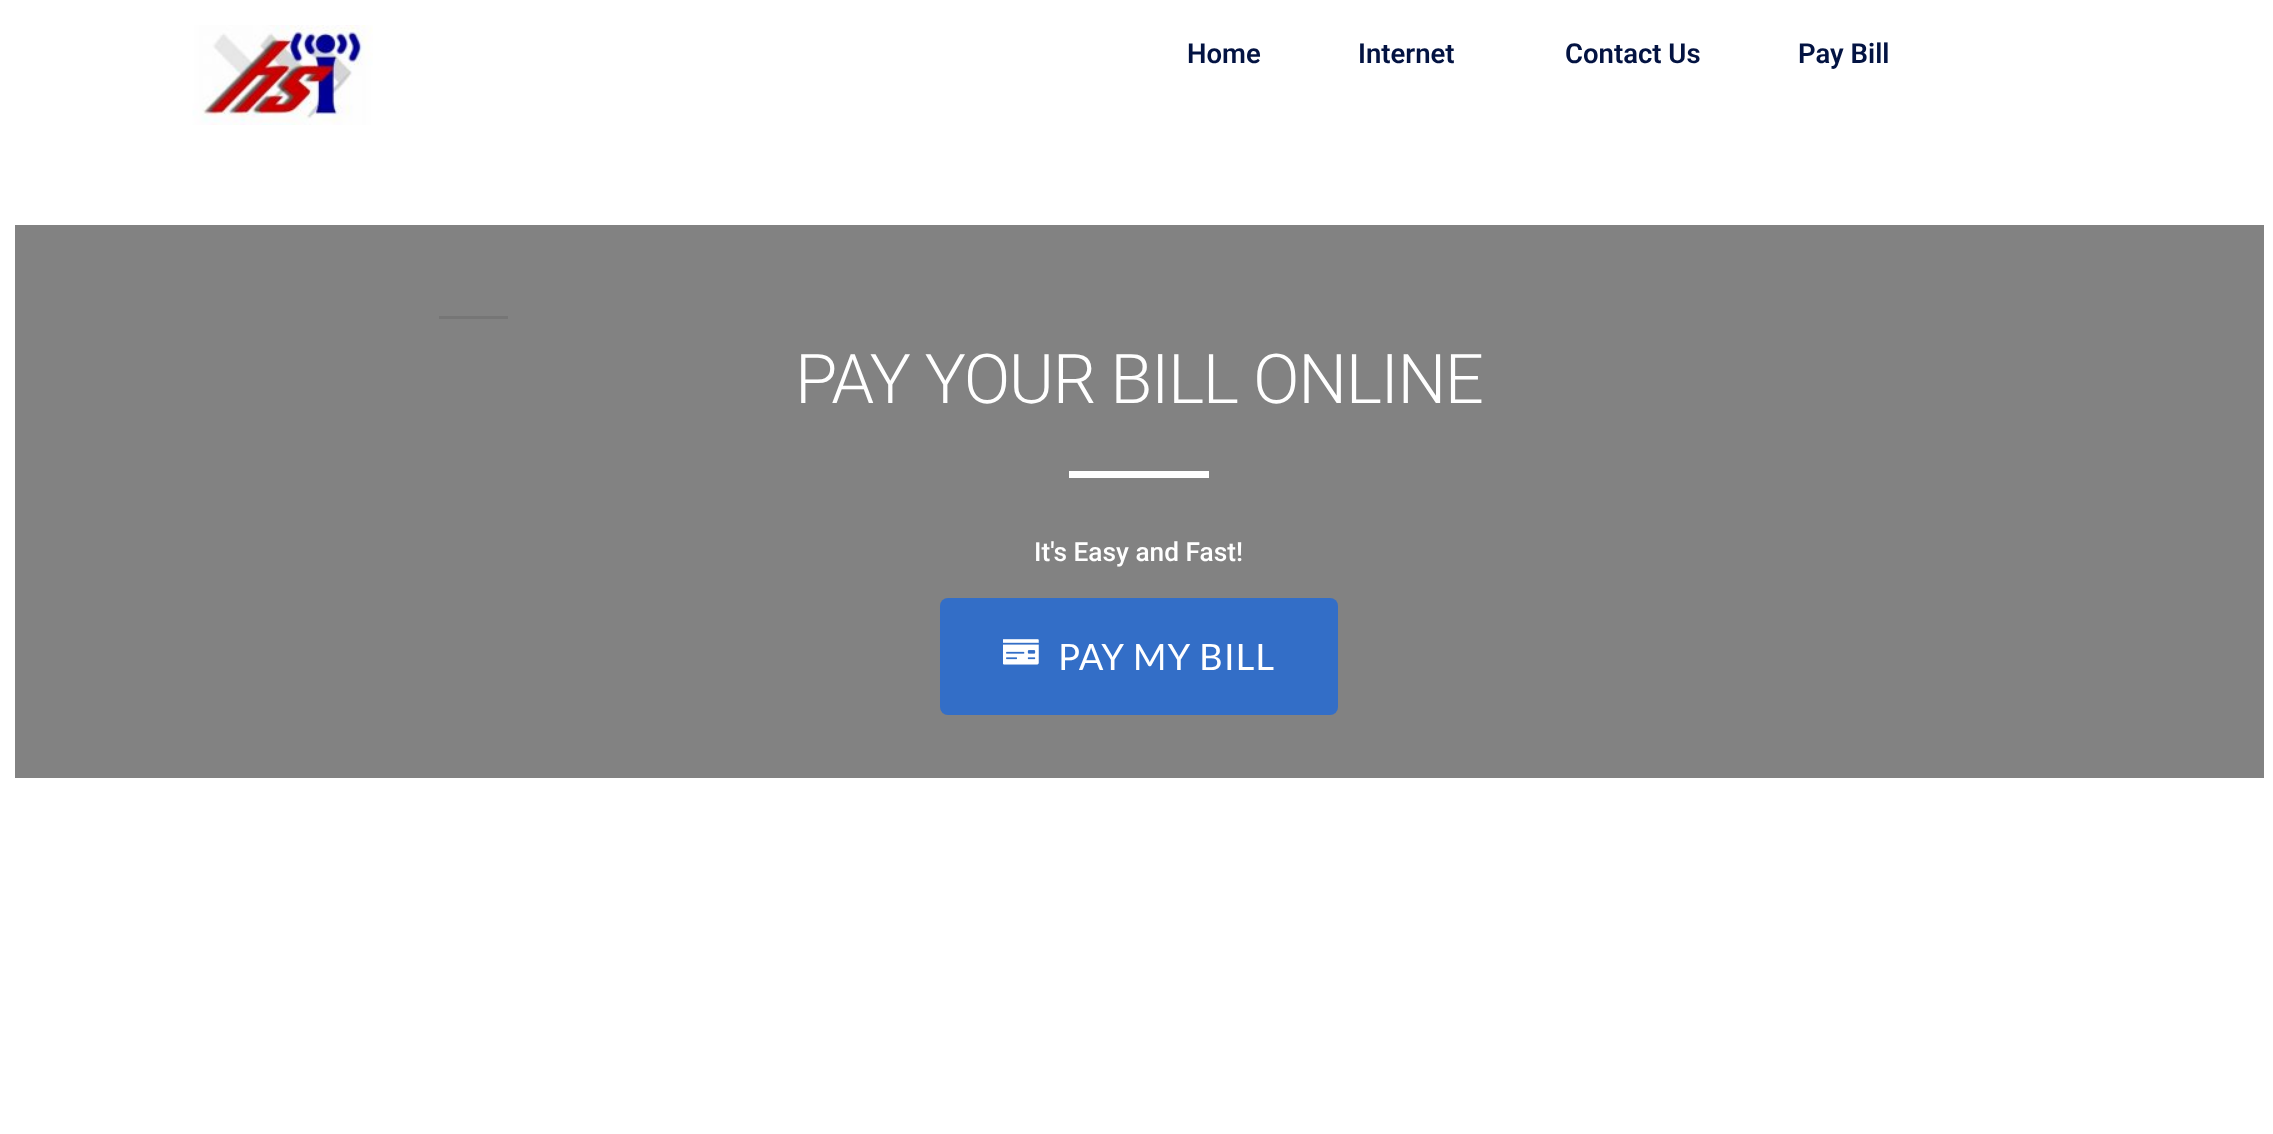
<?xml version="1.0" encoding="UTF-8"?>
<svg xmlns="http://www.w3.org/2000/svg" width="2273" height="1134">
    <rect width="100%" height="100%" fill="#FFFFFF"/>
    <image x="192" y="25" width="181" height="100" href="img_01.png"/>
    <text x="1187" y="63" font-family="Roboto" font-size="27.5" font-weight="600" fill="#031342">Home</text>
    <text x="1358" y="63" font-family="Roboto" font-size="27.5" font-weight="600" fill="#031342">Internet</text>
    <text x="1565" y="63" font-family="Roboto" font-size="27.5" font-weight="600" fill="#031342">Contact Us</text>
    <text x="1798" y="63" font-family="Roboto" font-size="27.5" font-weight="600" fill="#031342">Pay Bill</text>
    <rect x="15" y="225" width="2249" height="553" fill="#828282"/>
    <rect x="439" y="316" width="69" height="3" fill="#767676"/>
    <text x="795" y="403" font-family="Roboto" font-size="68.75" font-weight="300" letter-spacing="-1.4" fill="#FFFFFF">PAY YOUR BILL ONLINE</text>
    <rect x="1069" y="471" width="140" height="7" fill="#FFFFFF"/>
    <text x="1034" y="561" font-family="Roboto" font-size="26.25" font-weight="500" fill="#FFFFFF">It's Easy and Fast!</text>
    <rect x="940" y="598" width="398" height="117" rx="8" fill="#336EC7"/>
    <image x="1003" y="639" width="36" height="26" href="img_02.png"/>
    <text x="1058" y="670" font-family="Lato" font-size="36.25" letter-spacing="1" fill="#FFFFFF">PAY MY BILL</text>
</svg>
